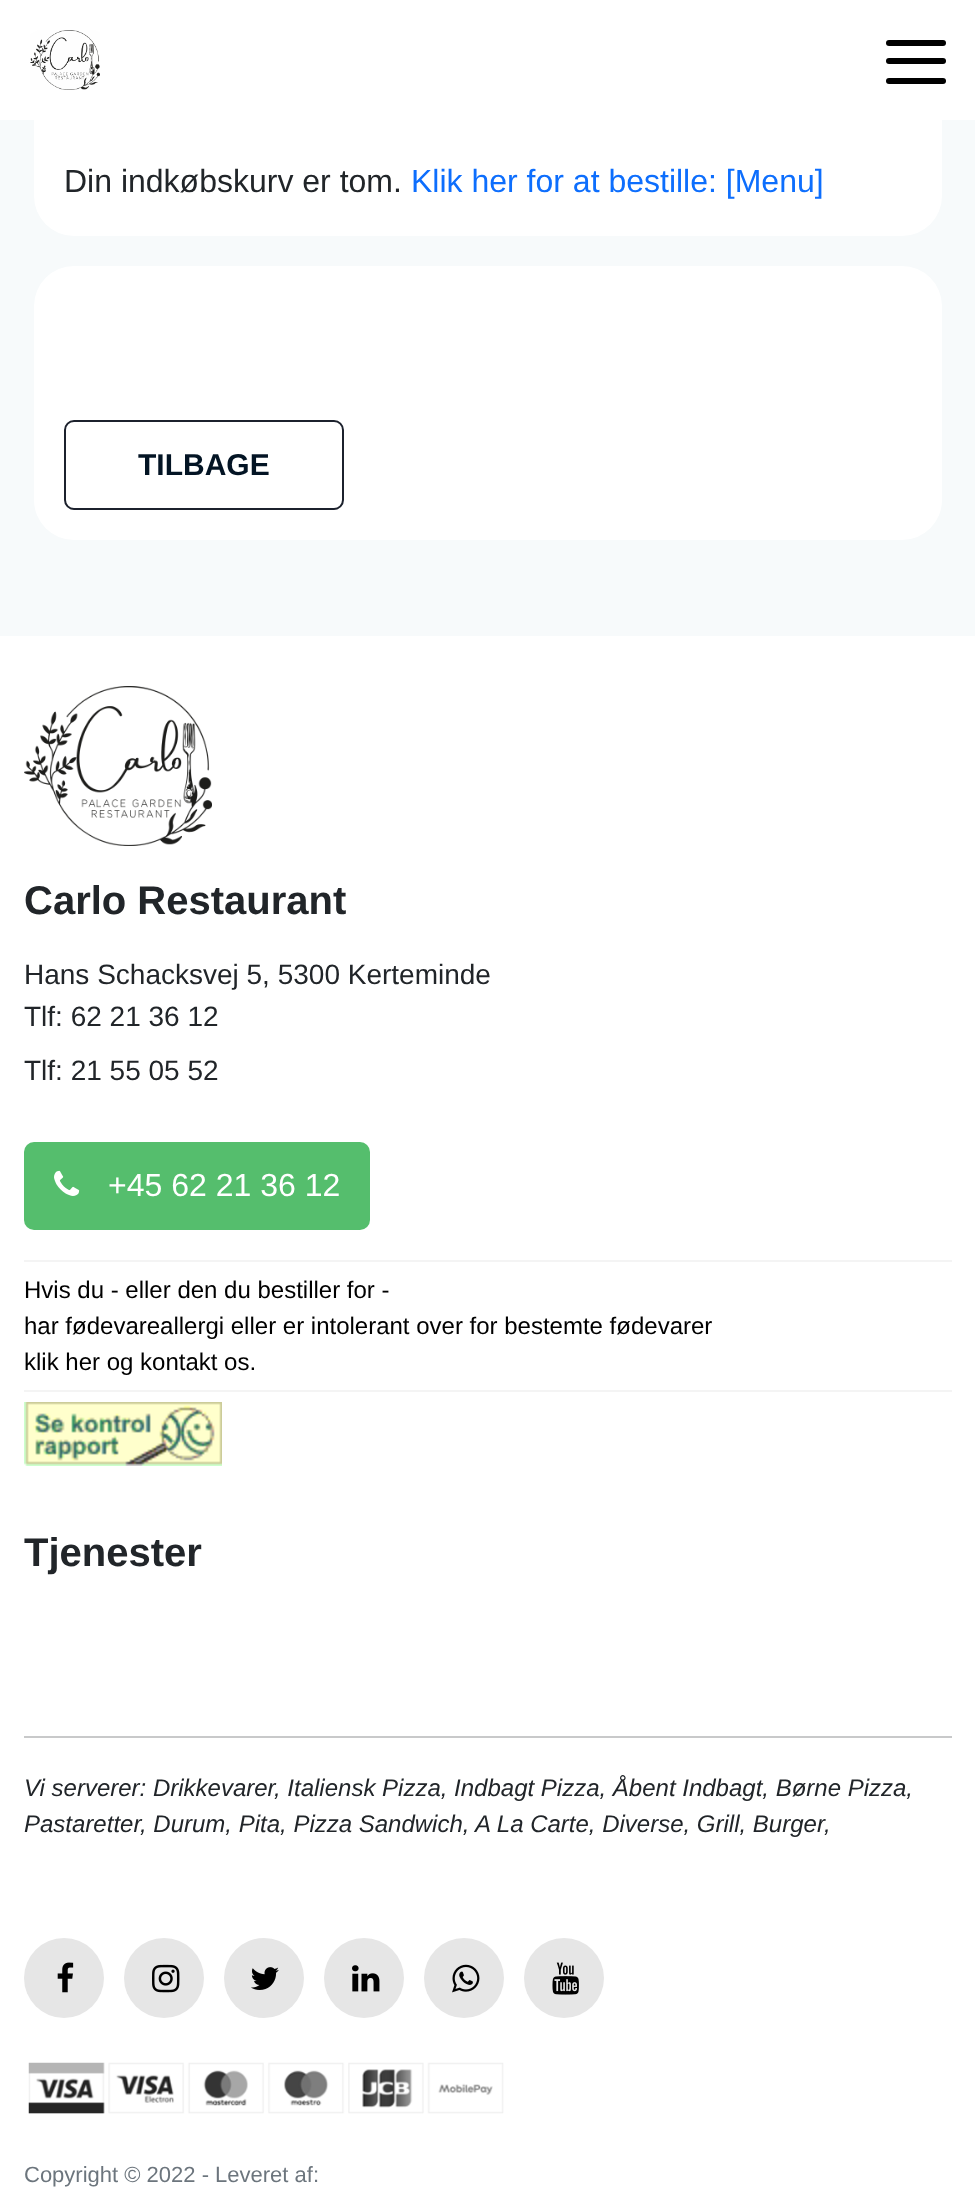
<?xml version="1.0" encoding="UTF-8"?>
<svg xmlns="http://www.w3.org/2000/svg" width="975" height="2203">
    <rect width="100%" height="100%" fill="#F7FAFB"/>
    <rect x="34" y="30" width="908" height="206" rx="40" fill="#FFFFFF"/>
    <rect x="0" y="0" width="975" height="120" fill="#FFFFFF"/>
    <image x="30" y="30" width="70" height="60" href="img_01.png"/>
    <rect x="886" y="40" width="60" height="6" rx="3" fill="#000000"/>
    <rect x="886" y="58" width="60" height="6" rx="3" fill="#000000"/>
    <rect x="886" y="78" width="60" height="6" rx="3" fill="#000000"/>
    <text x="64" y="192" font-family="Liberation Sans" font-size="32" fill="#212529">Din indkøbskurv er tom.</text>
    <text x="411" y="192" font-family="Liberation Sans" font-size="32" fill="#0D6EFD">Klik her for at bestille: [Menu]</text>
    <rect x="34" y="266" width="908" height="274" rx="40" fill="#FFFFFF"/>
    <rect x="65" y="421" width="278" height="88" rx="9" fill="none" stroke="#1C212D" stroke-width="2"/>
    <text x="138" y="475" font-family="Liberation Sans" font-size="30" font-weight="700" fill="#031424">TILBAGE</text>
    <rect x="0" y="636" width="975" height="1567" fill="#FFFFFF"/>
    <image x="24" y="686" width="188" height="160" href="img_02.png"/>
    <text x="24" y="914" font-family="Liberation Sans" font-size="40" font-weight="700" fill="#212529">Carlo Restaurant</text>
    <text font-family="Liberation Sans" font-size="28" fill="#212529">
        <tspan x="24" y="984">Hans Schacksvej 5, 5300 Kerteminde</tspan>
        <tspan x="24" y="1026">Tlf: 62 21 36 12</tspan>
        <tspan x="24" y="1080">Tlf: 21 55 05 52</tspan>
    </text>
    <rect x="24" y="1142" width="346" height="88" rx="10" fill="#55BE6D"/>
    <image x="54" y="1170" width="26" height="26" href="img_03.png"/>
    <text x="108" y="1196" font-family="Liberation Sans" font-size="32" fill="#FFFFFF">+45 62 21 36 12</text>
    <rect x="24" y="1260" width="928" height="2" fill="#F4F4F4"/>
    <text font-family="Liberation Sans" font-size="24" fill="#000000">
        <tspan x="24" y="1298">Hvis du - eller den du bestiller for -</tspan>
        <tspan x="24" y="1334">har fødevareallergi eller er intolerant over for bestemte fødevarer</tspan>
        <tspan x="24" y="1370">klik her og kontakt os.</tspan>
    </text>
    <rect x="24" y="1390" width="928" height="2" fill="#F4F4F4"/>
    <image x="24" y="1402" width="198" height="64" href="img_04.png"/>
    <text x="24" y="1566" font-family="Liberation Sans" font-size="40" font-weight="700" fill="#212529">Tjenester</text>
    <rect x="24" y="1736" width="928" height="2" fill="#C8C9CA"/>
    <text x="24" y="1796" font-family="Liberation Sans" font-size="24" font-style="italic" fill="#212529">Vi serverer: Drikkevarer</text>
    <text x="274" y="1796" font-family="Liberation Sans" font-size="24" font-style="italic" fill="#212529">, Italiensk Pizza, Indbagt Pizza, Åbent Indbagt, Børne Pizza,</text>
    <text x="24" y="1832" font-family="Liberation Sans" font-size="24" font-style="italic" fill="#212529">Pastaretter</text>
    <text x="140" y="1832" font-family="Liberation Sans" font-size="24" font-style="italic" fill="#212529">, Durum, Pita, Pizza Sandwich,</text>
    <text x="475" y="1832" font-family="Liberation Sans" font-size="24" font-style="italic" fill="#212529">A La Carte, Diverse, Grill, Burger</text>
    <text x="824" y="1832" font-family="Liberation Sans" font-size="24" font-style="italic" fill="#212529">,</text>
    <circle cx="64" cy="1978" r="40" fill="#E6E6E6"/>
    <image x="57" y="1962" width="17" height="31" href="img_05.png"/>
    <circle cx="164" cy="1978" r="40" fill="#E6E6E6"/>
    <image x="152" y="1964" width="28" height="29" href="img_06.png"/>
    <circle cx="264" cy="1978" r="40" fill="#E6E6E6"/>
    <image x="251" y="1967" width="28" height="23" href="img_07.png"/>
    <circle cx="364" cy="1978" r="40" fill="#E6E6E6"/>
    <image x="352" y="1965" width="28" height="27" href="img_08.png"/>
    <circle cx="464" cy="1978" r="40" fill="#E6E6E6"/>
    <image x="452" y="1964" width="28" height="29" href="img_09.png"/>
    <circle cx="564" cy="1978" r="40" fill="#E6E6E6"/>
    <image x="552" y="1962" width="27" height="33" href="img_10.png"/>
    <image x="28" y="2062" width="476" height="52" href="img_11.png"/>
    <text x="24" y="2182" font-family="Liberation Sans" font-size="22" fill="#6C757D">Copyright © 2022 - Leveret af:</text>
</svg>
